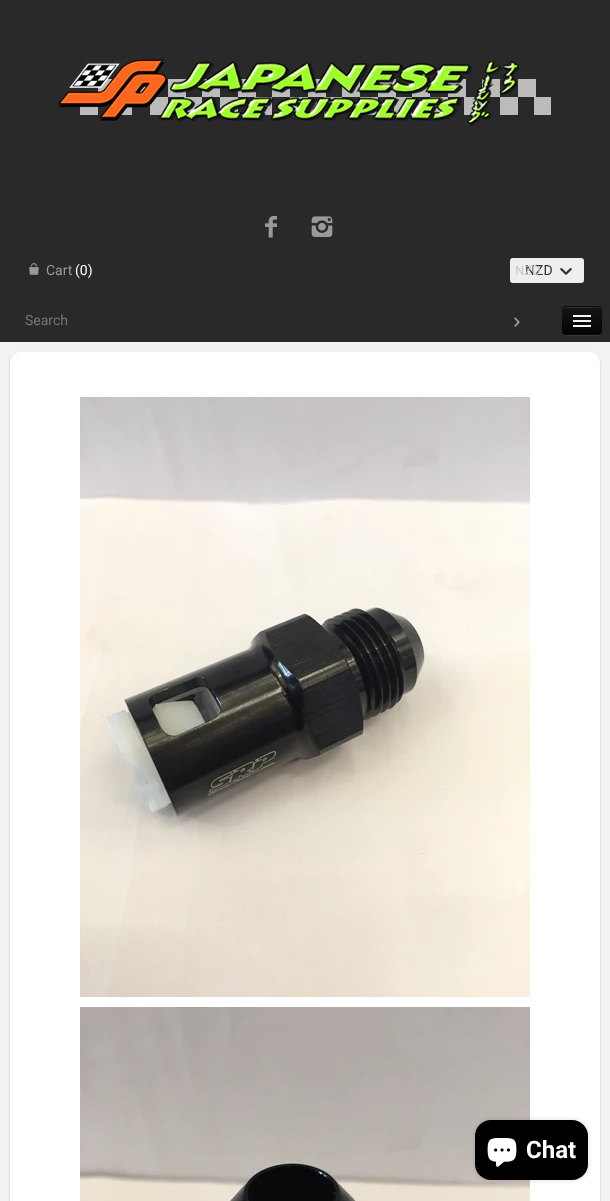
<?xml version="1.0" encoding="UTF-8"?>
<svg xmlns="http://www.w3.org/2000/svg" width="610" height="1201">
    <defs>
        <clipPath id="clip1"><rect x="562" y="306" width="40" height="29" rx="4"/></clipPath>
        <linearGradient id="g1" gradientUnits="userSpaceOnUse" x1="582" y1="307" x2="582" y2="334"><stop offset="0" stop-color="#151515"/><stop offset="1" stop-color="#040404"/></linearGradient>
        <filter id="blur1" x="-50%" y="-200%" width="200%" height="500%"><feGaussianBlur stdDeviation="1"/></filter>
        <filter id="blur2" x="-50%" y="-200%" width="200%" height="500%"><feGaussianBlur stdDeviation="2.5"/></filter>
    </defs>
    <rect width="100%" height="100%" fill="#F4F1F1"/>
    <rect x="0" y="0" width="610" height="342" fill="#292929"/>
    <image x="58" y="59" width="493" height="67" href="img_01.png"/>
    <image x="265" y="215" width="12" height="23" href="img_02.png"/>
    <image x="311" y="216" width="22" height="21" href="img_03.png"/>
    <image x="29" y="263" width="10" height="12" href="img_04.png"/>
    <text x="46" y="275" font-family="Roboto" font-size="14" fill="#999999">Cart</text>
    <text x="75" y="275" font-family="Roboto" font-size="14" fill="#FFFFFF">(0)</text>
    <rect x="510" y="258" width="74" height="25" rx="3" fill="#EEEEEE"/>
    <text x="525" y="275" font-family="Roboto" font-size="14" fill="#333333">NZD</text>
    <text x="515" y="275" font-family="Roboto" font-size="13" fill="#CACACA">NZD</text>
    <image x="560" y="268" width="12" height="7" href="img_05.png"/>
    <text x="25" y="325" font-family="Roboto" font-size="14" fill="#757575">Search</text>
    <image x="514" y="317" width="6" height="10" href="img_06.png"/>
    <path d="M 562 331 C 562 337 567 336 571 336 H 593 C 597 336 602 337 602 331 C 602 333 600 335 598 335 H 566 C 564 335 562 333 562 331 Z" fill="#393939"/>
    <rect x="562" y="306" width="40" height="29" rx="4" fill="#0E0E0E"/>
    <g clip-path="url(#clip1)">
        <rect x="562" y="307" width="40" height="27" fill="url(#g1)"/>
    </g>
    <path d="M 566 308 H 598 C 600 308 601 309 601 311 C 601 306 597 307 592.5 307 H 571.5 C 567 307 563 306 563 311 C 563 309 564 308 566 308 Z" fill="#2C2C2C"/>
    <path d="M 600.5 333.5 C 600 334 599 334.5 598 334.5 H 566 C 565 334.5 564 334 563.5 333.5" fill="none" stroke="#000000" stroke-opacity="0.25"/>
    <rect x="573" y="315" width="18" height="2" fill="#F5F5F5"/>
    <rect x="573" y="320" width="18" height="2" fill="#F5F5F5"/>
    <rect x="573" y="325" width="18" height="2" fill="#F5F5F5"/>
    <rect x="10" y="353" width="590" height="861" rx="10" fill="#000000" fill-opacity="0.2" filter="url(#blur1)"/>
    <rect x="10" y="352" width="590" height="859" rx="10" fill="#FFFFFF"/>
    <image x="80" y="397" width="450" height="600" href="img_07.png"/>
    <image x="80" y="1007" width="450" height="194" href="img_08.png"/>
    <rect x="475" y="1120" width="113" height="60" rx="16" fill="#000000" fill-opacity="0.15" filter="url(#blur2)"/>
    <rect x="475" y="1120" width="113" height="60" rx="16" fill="#000000"/>
    <image x="487" y="1138" width="30" height="29" href="img_09.png"/>
    <text x="526" y="1158" font-family="Roboto" font-size="24" font-weight="700" fill="#FFFFFF">Chat</text>
</svg>
